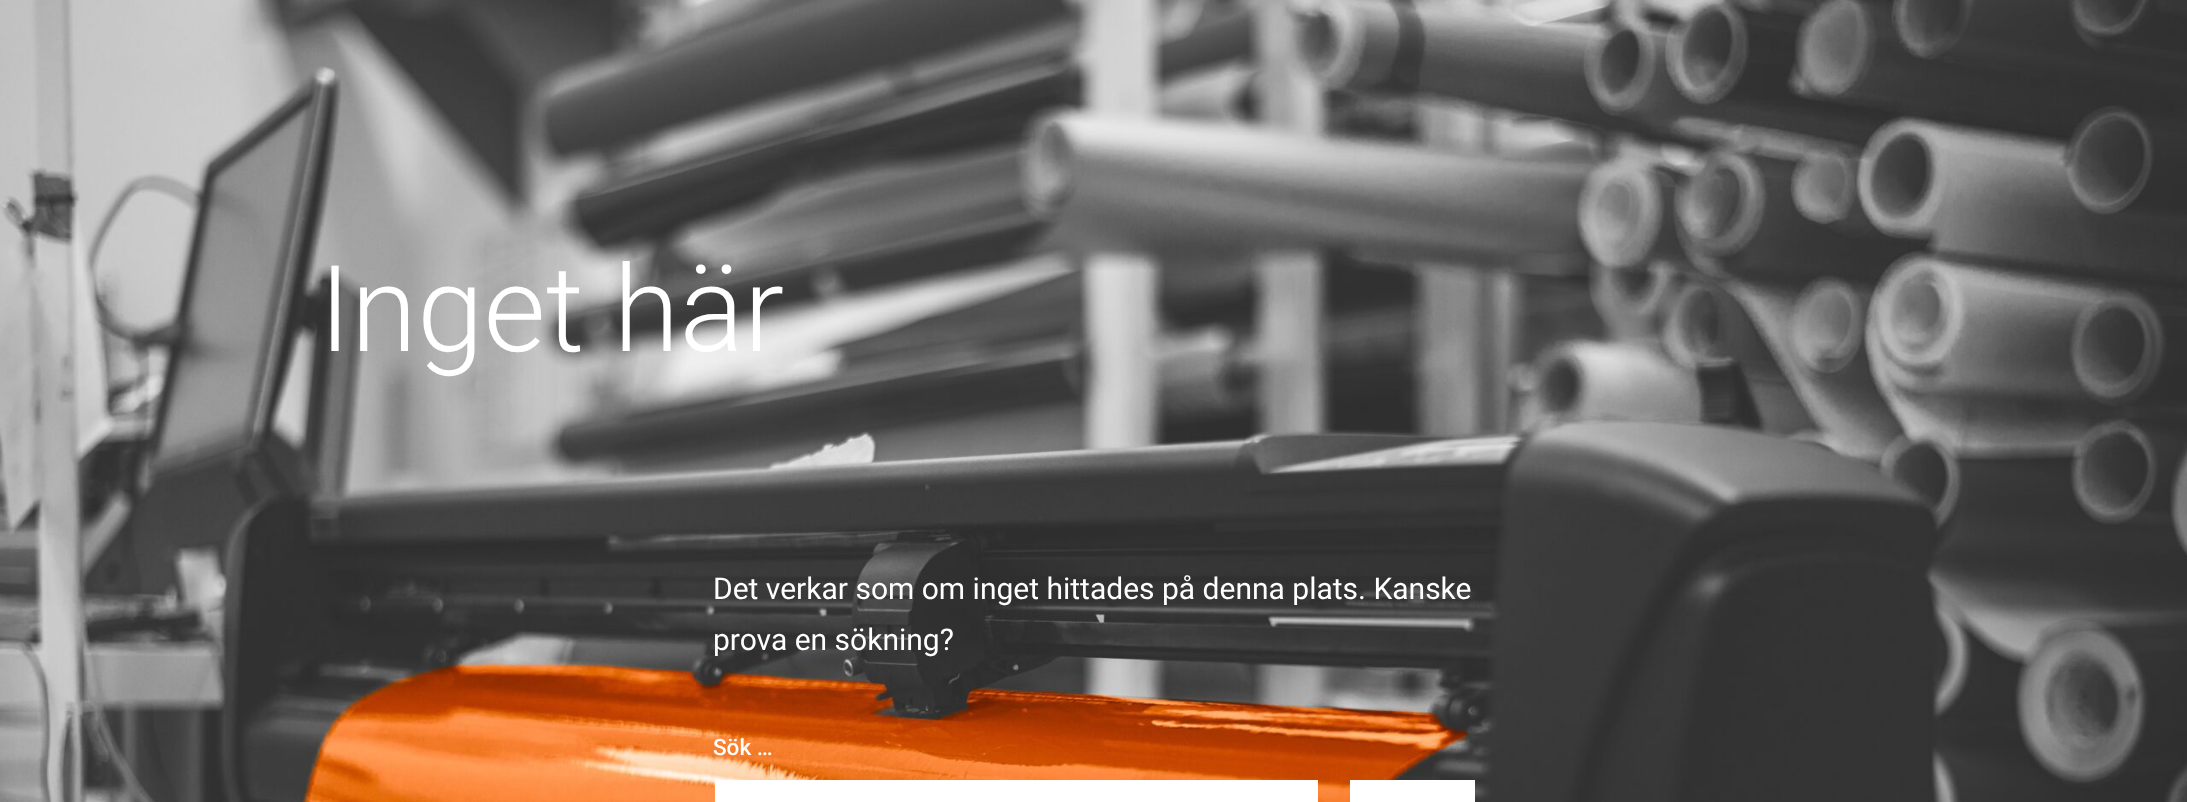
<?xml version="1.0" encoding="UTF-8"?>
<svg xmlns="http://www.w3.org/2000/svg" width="2187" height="802">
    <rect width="100%" height="100%" fill="#FFFFFF"/>
    <image x="0" y="0" width="2187" height="802" href="img_01.png"/>
    <text x="319" y="351" font-family="Roboto" font-size="120" font-weight="300" fill="#FFFFFF">Inget här</text>
    <text font-family="Roboto" font-size="30" fill="#FFFFFF">
        <tspan x="713" y="599">Det verkar som om inget hittades på denna plats. Kanske</tspan>
        <tspan x="713" y="650">prova en sökning?</tspan>
    </text>
    <text x="713" y="755" font-family="Roboto" font-size="22.5" font-weight="500" fill="#FFFFFF">Sök …</text>
    <rect x="715" y="780" width="603" height="22" fill="#FFFFFF"/>
    <rect x="1350" y="780" width="125" height="22" fill="#FFFFFF"/>
</svg>
